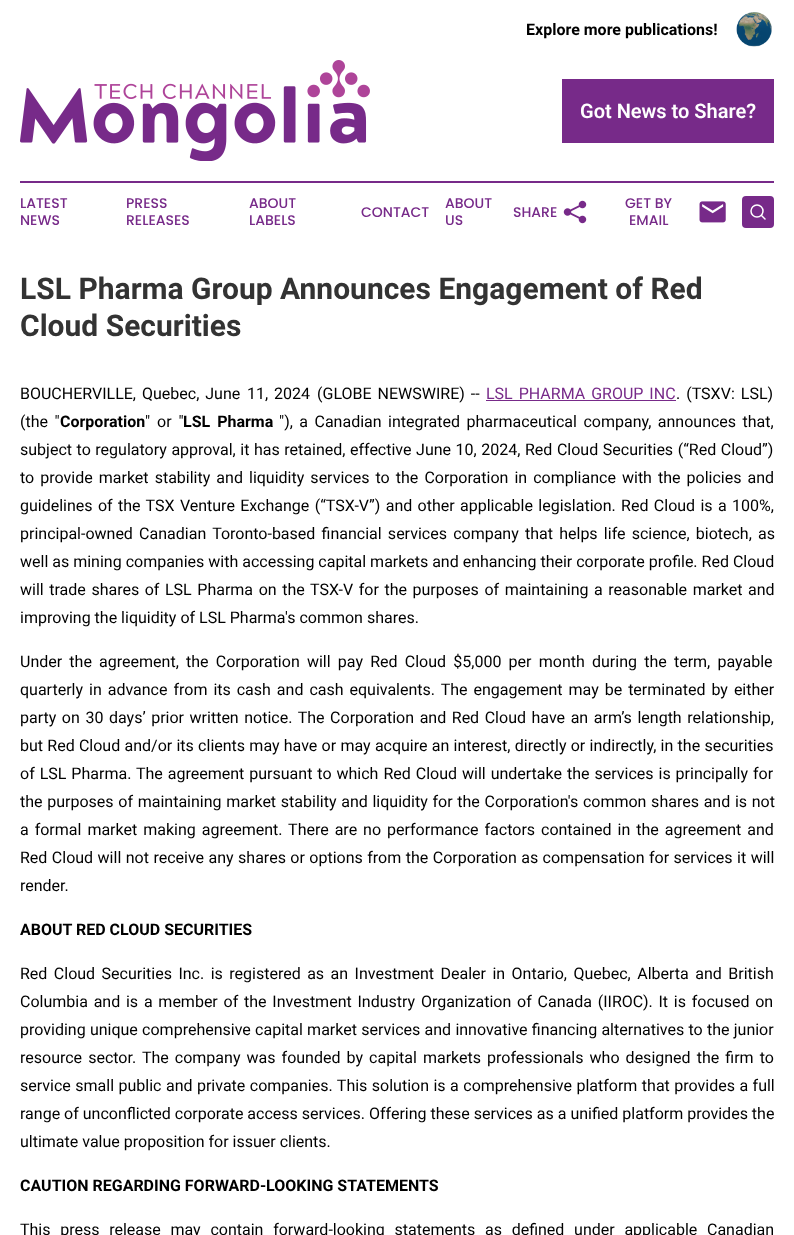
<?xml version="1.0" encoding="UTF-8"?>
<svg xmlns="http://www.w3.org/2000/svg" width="794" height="1235">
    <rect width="100%" height="100%" fill="#FFFFFF"/>
    <text x="526" y="35" font-family="Roboto" font-size="16" font-weight="700" fill="#000000">Explore more publications!</text>
    <image x="736" y="12" width="36" height="35" href="img_01.png"/>
    <image x="20" y="60" width="350" height="101" href="img_02.png"/>
    <rect x="562" y="79" width="212" height="64" fill="#772A89"/>
    <text x="580" y="118" font-family="Roboto" font-size="20" font-weight="600" fill="#FFFFFF">Got News to Share?</text>
    <rect x="20" y="181" width="754" height="2" fill="#772A89"/>
    <text font-family="Poppins" font-size="14" font-weight="500" fill="#772A89">
        <tspan x="20" y="208">LATEST</tspan>
        <tspan x="20" y="225">NEWS</tspan>
    </text>
    <text font-family="Poppins" font-size="14" font-weight="500" fill="#772A89">
        <tspan x="126" y="208">PRESS</tspan>
        <tspan x="126" y="225">RELEASES</tspan>
    </text>
    <text font-family="Poppins" font-size="14" font-weight="500" fill="#772A89">
        <tspan x="249" y="208">ABOUT</tspan>
        <tspan x="249" y="225">LABELS</tspan>
    </text>
    <text x="361" y="217" font-family="Poppins" font-size="14" font-weight="500" fill="#772A89">CONTACT</text>
    <text font-family="Poppins" font-size="14" font-weight="500" fill="#772A89">
        <tspan x="445" y="208">ABOUT</tspan>
        <tspan x="445" y="225">US</tspan>
    </text>
    <text x="513" y="217" font-family="Poppins" font-size="14" font-weight="500" fill="#772A89">SHARE</text>
    <image x="563" y="200" width="24" height="24" href="img_03.png"/>
    <text x="625" y="208" font-family="Poppins" font-size="14" font-weight="500" fill="#772A89">GET BY</text>
    <text x="629" y="225" font-family="Poppins" font-size="14" font-weight="500" fill="#772A89">EMAIL</text>
    <image x="699" y="201" width="27" height="22" href="img_04.png"/>
    <rect x="742" y="196" width="32" height="32" rx="4" fill="#772A89"/>
    <circle cx="757" cy="211" r="6" fill="none" stroke="#FFFFFF" stroke-width="1.5"/>
    <path d="M 765 219 L 761.5 215.5" fill="none" stroke="#FFFFFF" stroke-width="1.5" stroke-linecap="round" stroke-linejoin="round"/>
    <text font-family="Roboto" font-size="30" font-weight="700" fill="#333333">
        <tspan x="20" y="299">LSL Pharma Group Announces Engagement of Red</tspan>
        <tspan x="20" y="336">Cloud Securities</tspan>
    </text>
    <text x="20" y="399" word-spacing="2" font-family="Roboto" font-size="16" fill="#000000">BOUCHERVILLE, Quebec, June</text>
    <text x="247" y="399" word-spacing="2" font-family="Roboto" font-size="16" fill="#000000">11, 2024</text>
    <text x="317" y="399" word-spacing="2" font-family="Roboto" font-size="16" fill="#000000">(GLOBE NEWSWIRE) --</text>
    <text x="486" y="399" word-spacing="2" font-family="Roboto" font-size="16" fill="#772A89">LSL PHARMA GROUP INC</text>
    <rect x="486" y="400" width="190" height="1" fill="#772A89"/>
    <text x="676" y="399" word-spacing="2" font-family="Roboto" font-size="16" fill="#000000">. (TSXV: LSL)</text>
    <text x="20" y="427" word-spacing="2.5" font-family="Roboto" font-size="16" fill="#000000">(the "</text>
    <text x="60" y="427" font-family="Roboto" font-size="16" font-weight="700" fill="#000000">Corporation</text>
    <text x="145" y="427" word-spacing="3" font-family="Roboto" font-size="16" fill="#000000">" or "</text>
    <text x="183" y="427" word-spacing="3" font-family="Roboto" font-size="16" font-weight="700" fill="#000000">LSL Pharma</text>
    <text x="279" y="427" word-spacing="2.5" font-family="Roboto" font-size="16" fill="#000000">"), a Canadian integrated pharmaceutical company, announces that,</text>
    <text font-family="Roboto" font-size="16" fill="#000000">
        <tspan x="20" y="455" word-spacing="0.6">subject to regulatory approval, it has retained, effective June 10, 2024, Red Cloud Securities (“Red Cloud”)</tspan>
        <tspan x="20" y="483" word-spacing="2.1">to provide market stability and liquidity services to the Corporation in compliance with the policies and</tspan>
        <tspan x="20" y="511" word-spacing="1.4">guidelines of the TSX Venture Exchange (“TSX-V”) and other applicable legislation. Red Cloud is a 100%,</tspan>
        <tspan x="20" y="539" word-spacing="2.25">principal-owned Canadian Toronto-based financial services company that helps life science, biotech, as</tspan>
        <tspan x="20" y="567">well as mining companies with accessing capital markets and enhancing their corporate profile. Red Cloud</tspan>
        <tspan x="20" y="595" word-spacing="1.6">will trade shares of LSL Pharma on the TSX-V for the purposes of maintaining a reasonable market and</tspan>
        <tspan x="20" y="623">improving the liquidity of LSL Pharma's common shares.</tspan>
    </text>
    <text font-family="Roboto" font-size="16" fill="#000000">
        <tspan x="20" y="667" word-spacing="3.25">Under the agreement, the Corporation will pay Red Cloud $5,000 per month during the term, payable</tspan>
        <tspan x="20" y="695" word-spacing="2">quarterly in advance from its cash and cash equivalents. The engagement may be terminated by either</tspan>
        <tspan x="20" y="723" word-spacing="1.6">party on 30 days’ prior written notice. The Corporation and Red Cloud have an arm’s length relationship,</tspan>
        <tspan x="20" y="751" word-spacing="0.3">but Red Cloud and/or its clients may have or may acquire an interest, directly or indirectly, in the securities</tspan>
        <tspan x="20" y="779" word-spacing="1">of LSL Pharma. The agreement pursuant to which Red Cloud will undertake the services is principally for</tspan>
        <tspan x="20" y="807" word-spacing="0.75">the purposes of maintaining market stability and liquidity for the Corporation's common shares and is not</tspan>
        <tspan x="20" y="835" word-spacing="2">a formal market making agreement. There are no performance factors contained in the agreement and</tspan>
        <tspan x="20" y="863" word-spacing="0.5">Red Cloud will not receive any shares or options from the Corporation as compensation for services it will</tspan>
        <tspan x="20" y="891">render.</tspan>
    </text>
    <text x="20" y="935" font-family="Roboto" font-size="16" font-weight="700" fill="#000000">ABOUT RED CLOUD SECURITIES</text>
    <text font-family="Roboto" font-size="16" fill="#000000">
        <tspan x="20" y="979" word-spacing="2.5">Red Cloud Securities Inc. is registered as an Investment Dealer in Ontario, Quebec, Alberta and British</tspan>
        <tspan x="20" y="1007" word-spacing="1.8">Columbia and is a member of the Investment Industry Organization of Canada (IIROC). It is focused on</tspan>
        <tspan x="20" y="1035" word-spacing="0.3">providing unique comprehensive capital market services and innovative financing alternatives to the junior</tspan>
        <tspan x="20" y="1063" word-spacing="2.1">resource sector. The company was founded by capital markets professionals who designed the firm to</tspan>
        <tspan x="20" y="1091" word-spacing="0.5">service small public and private companies. This solution is a comprehensive platform that provides a full</tspan>
        <tspan x="20" y="1119">range of unconflicted corporate access services. Offering these services as a unified platform provides the</tspan>
        <tspan x="20" y="1147">ultimate value proposition for issuer clients.</tspan>
    </text>
    <text x="20" y="1191" font-family="Roboto" font-size="16" font-weight="700" fill="#000000">CAUTION REGARDING FORWARD-LOOKING STATEMENTS</text>
    <text x="20" y="1235" word-spacing="5.75" font-family="Roboto" font-size="16" fill="#000000">This press release may contain forward-looking statements as defined under applicable Canadian</text>
</svg>
